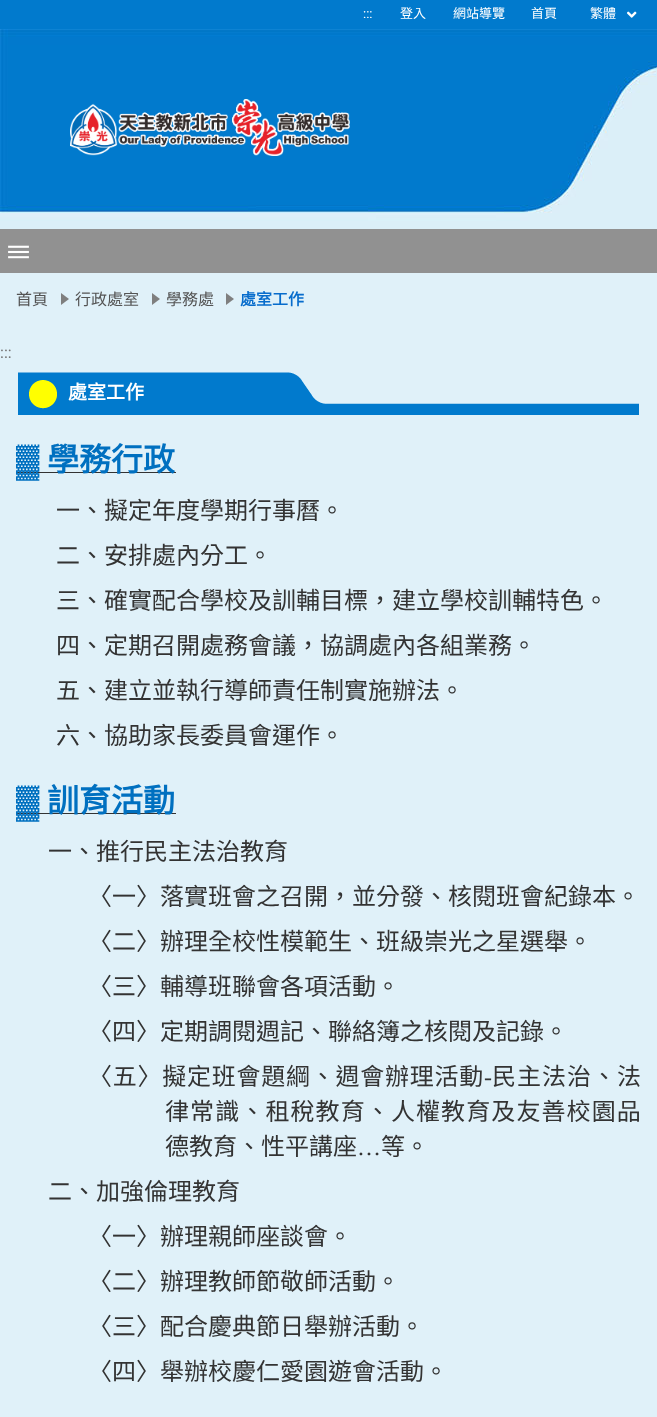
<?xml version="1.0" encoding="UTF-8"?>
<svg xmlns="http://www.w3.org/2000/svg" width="657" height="1417">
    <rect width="100%" height="100%" fill="#E0F1F9"/>
    <rect x="0" y="0" width="657" height="29" fill="#017ACD"/>
    <text x="363" y="18" font-family="Roboto" font-size="13" fill="#FFFFFF">:::</text>
    <text x="400" y="18" font-family="Noto Sans CJK TC" font-size="13" fill="#FFFFFF">登入</text>
    <text x="453" y="18" font-family="Noto Sans CJK TC" font-size="13" fill="#FFFFFF">網站導覽</text>
    <text x="531" y="18" font-family="Noto Sans CJK TC" font-size="13" fill="#FFFFFF">首頁</text>
    <text x="590" y="18" font-family="Noto Sans CJK TC" font-size="13" fill="#FFFFFF">繁體</text>
    <image x="627" y="11" width="10" height="7" href="img_01.png"/>
    <image x="0" y="29" width="657" height="200" href="img_02.png"/>
    <image x="70" y="99" width="280" height="57" href="img_03.png"/>
    <rect x="0" y="229" width="657" height="44" fill="#919191"/>
    <image x="8" y="245" width="21" height="14" href="img_04.png"/>
    <text x="16" y="305" font-family="Noto Sans CJK TC" font-size="16" fill="#545454">首頁</text>
    <path d="M 61 305 V 293 L 69 299 Z" fill="#7F7F7F"/>
    <text x="75" y="305" font-family="Noto Sans CJK TC" font-size="16" fill="#545454">行政處室</text>
    <path d="M 152 305 V 293 L 160 299 Z" fill="#7F7F7F"/>
    <text x="166" y="305" font-family="Noto Sans CJK TC" font-size="16" fill="#545454">學務處</text>
    <path d="M 226 305 V 293 L 234 299 Z" fill="#7F7F7F"/>
    <text x="240" y="305" font-family="Noto Sans CJK TC" font-size="16" font-weight="700" fill="#076CCC">處室工作</text>
    <text x="0" y="358" font-family="Roboto" font-size="16" fill="#757474">:::</text>
    <image x="18" y="372" width="621" height="43" href="img_05.png"/>
    <text x="68" y="399" font-family="Noto Sans CJK TC" font-size="19" font-weight="700" fill="#FFFFFF">處室工作</text>
    <rect x="16" y="472" width="160" height="1" fill="#333333"/>
    <text x="16" y="471" font-family="Liberation Serif" font-size="32" font-weight="700" fill="#0070C0">▓</text>
    <text x="47" y="471" font-family="Noto Sans CJK TC" font-size="32" font-weight="700" fill="#0070C0">學務行政</text>
    <text font-family="Noto Sans CJK TC" font-size="24" fill="#333333">
        <tspan x="56" y="519">一、擬定年度學期行事曆。</tspan>
        <tspan x="56" y="564">二、安排處內分工。</tspan>
        <tspan x="56" y="609">三、確實配合學校及訓輔目標，建立學校訓輔特色。</tspan>
        <tspan x="56" y="654">四、定期召開處務會議，協調處內各組業務。</tspan>
        <tspan x="56" y="699">五、建立並執行導師責任制實施辦法。</tspan>
        <tspan x="56" y="744">六、協助家長委員會運作。</tspan>
    </text>
    <rect x="16" y="813" width="160" height="1" fill="#333333"/>
    <text x="16" y="812" font-family="Liberation Serif" font-size="32" font-weight="700" fill="#0070C0">▓</text>
    <text x="47" y="812" font-family="Noto Sans CJK TC" font-size="32" font-weight="700" fill="#0070C0">訓育活動</text>
    <text x="48" y="860" font-family="Noto Sans CJK TC" font-size="24" fill="#333333">一、推行民主法治教育</text>
    <text font-family="Noto Sans CJK TC" font-size="24" fill="#333333">
        <tspan x="88" y="905">〈一〉落實班會之召開，並分發、核閱班會紀錄本。</tspan>
        <tspan x="88" y="950">〈二〉辦理全校性模範生、班級崇光之星選舉。</tspan>
        <tspan x="88" y="995">〈三〉輔導班聯會各項活動。</tspan>
        <tspan x="88" y="1040">〈四〉定期調閱週記、聯絡簿之核閱及記錄。</tspan>
    </text>
    <text x="88" y="1085" font-family="Noto Sans CJK TC" font-size="24" letter-spacing="0.75" fill="#333333">〈五〉擬定班會題綱、週會辦理活動</text>
    <text x="484" y="1085" font-family="Liberation Serif" font-size="24" fill="#333333">-</text>
    <text x="492" y="1085" font-family="Noto Sans CJK TC" font-size="24" letter-spacing="1" fill="#333333">民主法治、法</text>
    <text x="165" y="1120" font-family="Noto Sans CJK TC" font-size="24" letter-spacing="1.1" fill="#333333">律常識、租稅教育、人權教育及友善校園品</text>
    <text x="165" y="1155" font-family="Noto Sans CJK TC" font-size="24" fill="#333333">德教育、性平講座</text>
    <text x="357" y="1155" font-family="Liberation Serif" font-size="24" fill="#333333">…</text>
    <text x="381" y="1155" font-family="Noto Sans CJK TC" font-size="24" fill="#333333">等。</text>
    <text x="48" y="1200" font-family="Noto Sans CJK TC" font-size="24" fill="#333333">二、加強倫理教育</text>
    <text font-family="Noto Sans CJK TC" font-size="24" fill="#333333">
        <tspan x="88" y="1245">〈一〉辦理親師座談會。</tspan>
        <tspan x="88" y="1290">〈二〉辦理教師節敬師活動。</tspan>
        <tspan x="88" y="1335">〈三〉配合慶典節日舉辦活動。</tspan>
        <tspan x="88" y="1380">〈四〉舉辦校慶仁愛園遊會活動。</tspan>
    </text>
</svg>
